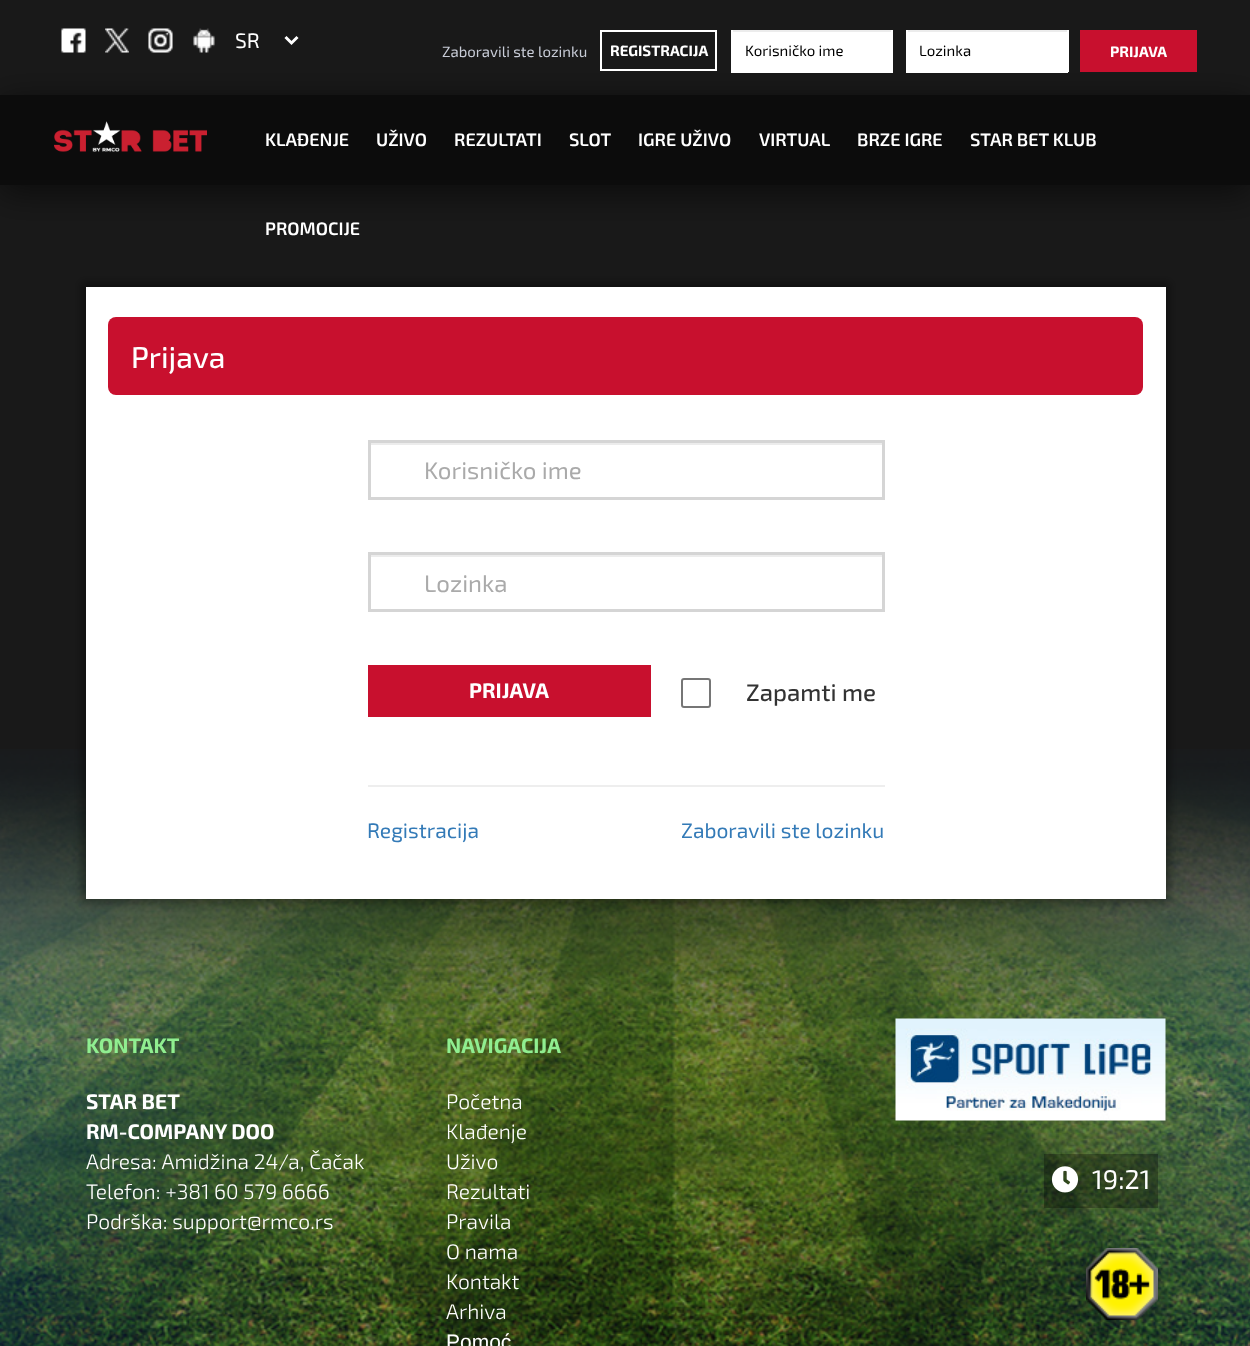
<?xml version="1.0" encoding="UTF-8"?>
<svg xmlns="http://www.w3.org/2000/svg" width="1250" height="1346">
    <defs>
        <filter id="blur1" x="-50%" y="-200%" width="200%" height="500%"><feGaussianBlur stdDeviation="17"/></filter>
        <filter id="blur2" x="-50%" y="-200%" width="200%" height="500%"><feGaussianBlur stdDeviation="4.5"/></filter>
    </defs>
    <rect width="100%" height="100%" fill="#191919"/>
    <image x="0" y="749" width="1250" height="597" href="img_01.png"/>
    <rect x="0" y="102" width="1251" height="90" fill="#000000" fill-opacity="0.58" filter="url(#blur1)"/>
    <image x="61" y="28" width="25" height="25" href="img_02.png"/>
    <image x="105" y="28" width="24" height="25" href="img_03.png"/>
    <image x="148" y="28" width="25" height="25" href="img_04.png"/>
    <image x="193" y="28" width="22" height="25" href="img_05.png"/>
    <path d="M 285.5 37 L 291.5 43 L 297.5 37" fill="none" stroke="#FFFFFF" stroke-width="3"/>
    <text x="235" y="48" font-family="'Exo 2'" font-size="21" fill="#FFFFFF">SR</text>
    <text x="442" y="57" font-family="'Exo 2'" font-size="15" fill="#C8CCD7">Zaboravili ste lozinku</text>
    <rect x="601" y="31" width="115" height="39" fill="none" stroke="#FFFFFF" stroke-width="2"/>
    <text x="610" y="56" font-family="'Exo 2'" font-size="15" font-weight="700" fill="#FFFFFF">REGISTRACIJA</text>
    <rect x="733" y="30" width="160" height="41" fill="#FFFFFF"/>
    <rect x="732" y="30" width="159" height="2" fill="#ECECEC"/>
    <rect x="731" y="71" width="162" height="2" fill="#FFFFFF"/>
    <rect x="731" y="30" width="2" height="42" fill="#FFFFFF"/>
    <text x="745" y="56" font-family="'Exo 2'" font-size="15" fill="#000000">Korisničko ime</text>
    <rect x="906" y="30" width="161" height="41" fill="#FFFFFF"/>
    <rect x="908" y="30" width="159" height="2" fill="#ECECEC"/>
    <rect x="1067" y="30" width="2" height="42" fill="#FFFFFF"/>
    <rect x="906" y="71" width="162" height="2" fill="#FFFFFF"/>
    <text x="919" y="56" font-family="'Exo 2'" font-size="15" fill="#000000">Lozinka</text>
    <rect x="1080" y="30" width="117" height="42" fill="#C8102E"/>
    <text x="1110" y="57" font-family="'Exo 2'" font-size="15" font-weight="700" fill="#FFFFFF">PRIJAVA</text>
    <rect x="0" y="95" width="1250" height="90" fill="#0C0C0C"/>
    <image x="54" y="121" width="153" height="31" href="img_06.png"/>
    <text x="265" y="146" font-family="'Exo 2'" font-size="18" font-weight="600" fill="#FFFFFF">KLAĐENJE</text>
    <text x="376" y="146" font-family="'Exo 2'" font-size="18" font-weight="600" fill="#FFFFFF">UŽIVO</text>
    <text x="454" y="146" font-family="'Exo 2'" font-size="18" font-weight="600" fill="#FFFFFF">REZULTATI</text>
    <text x="569" y="146" font-family="'Exo 2'" font-size="18" font-weight="600" fill="#FFFFFF">SLOT</text>
    <text x="638" y="146" font-family="'Exo 2'" font-size="18" font-weight="600" fill="#FFFFFF">IGRE UŽIVO</text>
    <text x="759" y="146" font-family="'Exo 2'" font-size="18" font-weight="600" fill="#FFFFFF">VIRTUAL</text>
    <text x="857" y="146" font-family="'Exo 2'" font-size="18" font-weight="600" fill="#FFFFFF">BRZE IGRE</text>
    <text x="970" y="146" font-family="'Exo 2'" font-size="18" font-weight="600" fill="#FFFFFF">STAR BET KLUB</text>
    <text x="265" y="235" font-family="'Exo 2'" font-size="18" font-weight="600" fill="#FFFFFF">PROMOCIJE</text>
    <rect x="81" y="282" width="1089" height="621" fill="#000000" fill-opacity="0.35" filter="url(#blur2)"/>
    <rect x="86" y="287" width="1080" height="612" fill="#FFFFFF"/>
    <rect x="108" y="317" width="1035" height="78" rx="8" fill="#C8102E"/>
    <text x="131" y="368" font-family="'Exo 2'" font-size="30" font-weight="500" fill="#FFFFFF">Prijava</text>
    <rect x="371" y="443" width="511" height="2" fill="#ECECEC"/>
    <rect x="369.5" y="441.5" width="514" height="57" fill="none" stroke="#D5D5D5" stroke-width="3"/>
    <text x="424" y="479" font-family="'Exo 2'" font-size="24" fill="#AAAAAA">Korisničko ime</text>
    <rect x="371" y="555" width="511" height="2" fill="#ECECEC"/>
    <rect x="369.5" y="553.5" width="514" height="57" fill="none" stroke="#D5D5D5" stroke-width="3"/>
    <text x="424" y="592" font-family="'Exo 2'" font-size="24" fill="#AAAAAA">Lozinka</text>
    <rect x="368" y="665" width="283" height="52" fill="#C8102E"/>
    <text x="469" y="698" font-family="'Exo 2'" font-size="21" font-weight="700" fill="#FFFFFF">PRIJAVA</text>
    <rect x="682" y="679" width="28" height="28" rx="2" fill="none" stroke="#767676" stroke-width="2"/>
    <text x="746" y="701" font-family="'Exo 2'" font-size="24" font-weight="500" fill="#333333">Zapamti me</text>
    <rect x="368" y="785" width="517" height="2" fill="#EEEEEE"/>
    <text x="367" y="838" font-family="'Exo 2'" font-size="21" fill="#337AB7">Registracija</text>
    <text x="681" y="838" font-family="'Exo 2'" font-size="21" fill="#337AB7">Zaboravili ste lozinku</text>
    <text x="86" y="1053" font-family="'Exo 2'" font-size="21" font-weight="700" fill="#90EE90">KONTAKT</text>
    <text font-family="'Exo 2'" font-size="21" font-weight="700" fill="#FFFFFF">
        <tspan x="86" y="1109">STAR BET</tspan>
        <tspan x="86" y="1139">RM-COMPANY DOO</tspan>
    </text>
    <text font-family="'Exo 2'" font-size="21" font-weight="300" fill="#FFFFFF">
        <tspan x="86" y="1169">Adresa: Amidžina 24/a, Čačak</tspan>
        <tspan x="86" y="1199">Telefon: +381 60 579 6666</tspan>
        <tspan x="86" y="1229">Podrška: support@rmco.rs</tspan>
    </text>
    <text x="446" y="1053" font-family="'Exo 2'" font-size="21" font-weight="700" fill="#90EE90">NAVIGACIJA</text>
    <text font-family="'Exo 2'" font-size="21" font-weight="300" fill="#FFFFFF">
        <tspan x="446" y="1109">Početna</tspan>
        <tspan x="446" y="1139">Klađenje</tspan>
        <tspan x="446" y="1169">Uživo</tspan>
        <tspan x="446" y="1199">Rezultati</tspan>
        <tspan x="446" y="1229">Pravila</tspan>
        <tspan x="446" y="1259">O nama</tspan>
        <tspan x="446" y="1289">Kontakt</tspan>
        <tspan x="446" y="1319">Arhiva</tspan>
    </text>
    <text x="446" y="1349" font-family="Liberation Sans" font-size="21" fill="#FFFFFF">Pomoć</text>
    <image x="895" y="1018" width="271" height="103" href="img_07.png"/>
    <rect x="1044" y="1154" width="114" height="54" fill="#000000" fill-opacity="0.3"/>
    <image x="1051" y="1166" width="28" height="27" href="img_08.png"/>
    <text x="1092" y="1189" font-family="'Exo 2'" font-size="27" fill="#FFFFFF">19:21</text>
    <image x="1086" y="1248" width="72" height="72" href="img_09.png"/>
</svg>
